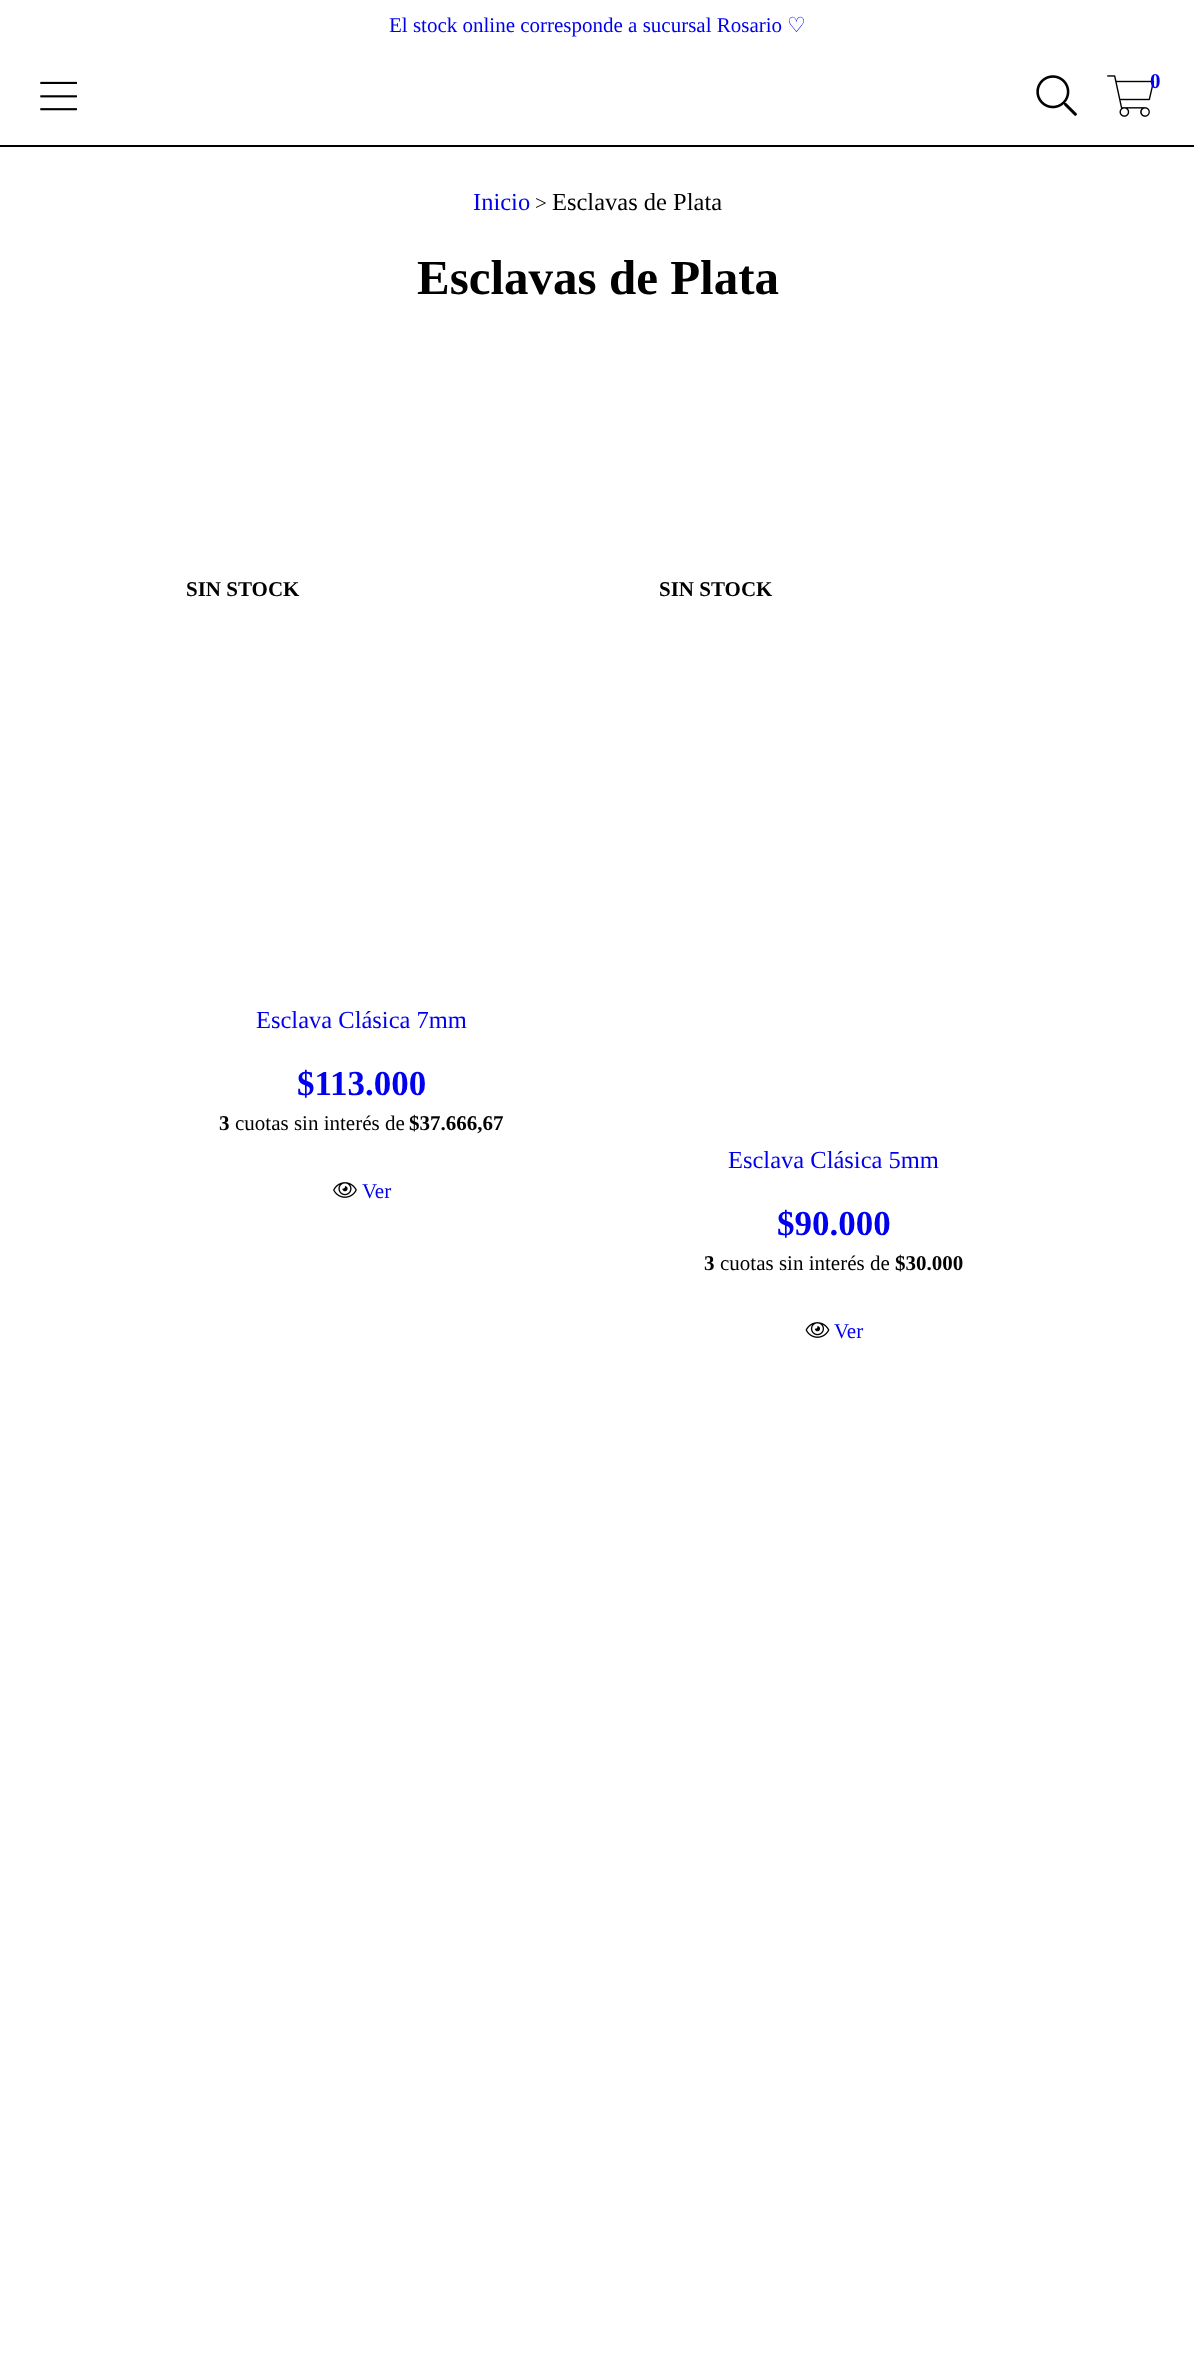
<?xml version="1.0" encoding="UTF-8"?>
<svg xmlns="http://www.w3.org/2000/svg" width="1194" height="2360">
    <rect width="100%" height="100%" fill="#FFFFFF"/>
    <text x="389" y="32" font-family="Liberation Serif" font-size="21" fill="#0000EE">El stock online corresponde a sucursal Rosario</text>
    <text x="787" y="32" font-family="DejaVu Sans" font-size="21" fill="#0000EE">♡</text>
    <image x="40" y="81" width="37" height="30" href="img_01.png"/>
    <image x="1036" y="75" width="41" height="41" href="img_02.png"/>
    <image x="1107" y="75" width="48" height="42" href="img_03.png"/>
    <text x="1150" y="88" font-family="Liberation Serif" font-size="21" font-weight="700" fill="#0000EE">0</text>
    <rect x="0" y="145" width="1194" height="2" fill="#000000"/>
    <text x="473" y="210" font-family="Liberation Serif" font-size="24.5" fill="#0000EE">Inicio</text>
    <text x="535" y="210" font-family="Liberation Serif" font-size="21" fill="#000000">&gt;</text>
    <text x="552" y="210" font-family="Liberation Serif" font-size="24.5" fill="#000000">Esclavas de Plata</text>
    <text x="417" y="294" font-family="Liberation Serif" font-size="49" font-weight="700" fill="#000000">Esclavas de Plata</text>
    <text x="186" y="596" font-family="Liberation Serif" font-size="21" font-weight="700" fill="#000000">SIN STOCK</text>
    <text x="256" y="1028" font-family="Liberation Serif" font-size="24.5" fill="#0000EE">Esclava Clásica 7mm</text>
    <text x="297" y="1095" font-family="Liberation Serif" font-size="35" font-weight="700" fill="#0000EE">$113.000</text>
    <text x="219" y="1130" font-family="Liberation Serif" font-size="21" font-weight="700" fill="#000000">3</text>
    <text x="235" y="1130" font-family="Liberation Serif" font-size="21" fill="#000000">cuotas sin interés de</text>
    <text x="409" y="1130" font-family="Liberation Serif" font-size="21" font-weight="700" fill="#000000">$37.666,67</text>
    <image x="333" y="1182" width="24" height="16" href="img_04.png"/>
    <text x="362" y="1198" font-family="Liberation Serif" font-size="21" fill="#0000EE">Ver</text>
    <text x="659" y="596" font-family="Liberation Serif" font-size="21" font-weight="700" fill="#000000">SIN STOCK</text>
    <text x="728" y="1168" font-family="Liberation Serif" font-size="24.5" fill="#0000EE">Esclava Clásica 5mm</text>
    <text x="777" y="1235" font-family="Liberation Serif" font-size="35" font-weight="700" fill="#0000EE">$90.000</text>
    <text x="704" y="1270" font-family="Liberation Serif" font-size="21" font-weight="700" fill="#000000">3</text>
    <text x="720" y="1270" font-family="Liberation Serif" font-size="21" fill="#000000">cuotas sin interés de</text>
    <text x="895" y="1270" font-family="Liberation Serif" font-size="21" font-weight="700" fill="#000000">$30.000</text>
    <image x="805" y="1322" width="25" height="16" href="img_05.png"/>
    <text x="834" y="1338" font-family="Liberation Serif" font-size="21" fill="#0000EE">Ver</text>
</svg>
